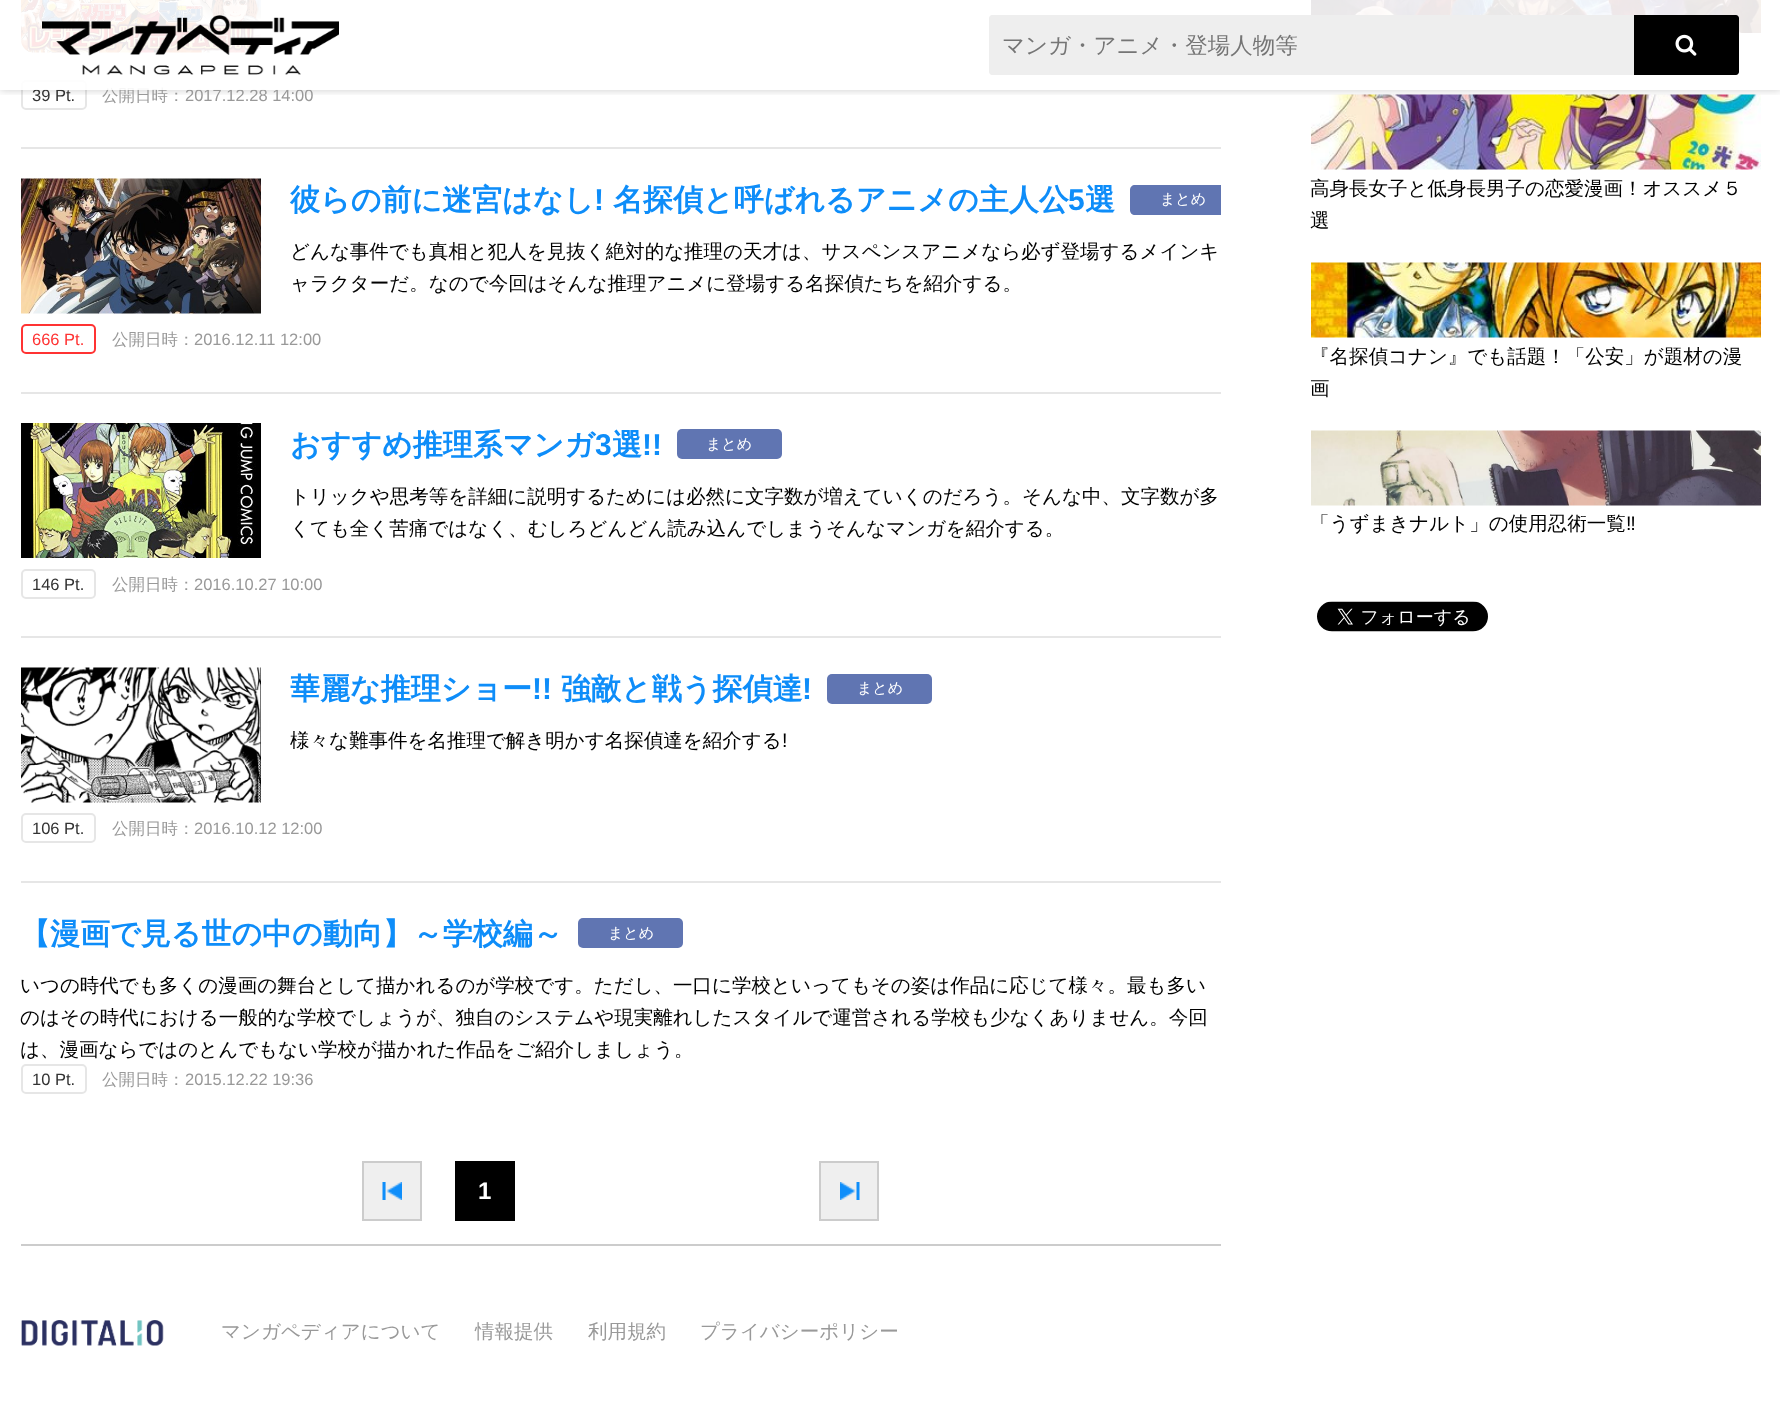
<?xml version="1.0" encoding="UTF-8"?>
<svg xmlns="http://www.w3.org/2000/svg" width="1780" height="1409">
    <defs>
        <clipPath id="clip1"><rect x="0" y="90" width="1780" height="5"/></clipPath>
        <filter id="blur1" x="-50%" y="-200%" width="200%" height="500%"><feGaussianBlur stdDeviation="4"/></filter>
    </defs>
    <rect width="100%" height="100%" fill="#FFFFFF"/>
    <image x="21" y="0" width="240" height="53" href="img_03.png"/>
    <rect x="22" y="81" width="64" height="28" rx="4" fill="none" stroke="#E6E6E6" stroke-width="2"/>
    <image x="1311" y="0" width="450" height="33" href="img_09.png"/>
    <image x="1311" y="94" width="450" height="76" href="img_10.png"/>
    <g clip-path="url(#clip1)">
        <rect x="0" y="0" width="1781" height="90" fill="#000000" fill-opacity="0.2" filter="url(#blur1)"/>
    </g>
    <text x="32" y="101" font-family="Liberation Sans" font-size="16.5" fill="#333333">39 Pt.</text>
    <text x="102" y="101" font-family="WenQuanYi Zen Hei" font-size="16.5" font-weight="500" fill="#999999">公開日時：</text>
    <text x="185" y="101" font-family="Liberation Sans" font-size="16.5" fill="#999999">2017.12.28 14:00</text>
    <rect x="21" y="0" width="1740" height="90" fill="#FFFFFF" fill-opacity="0.9"/>
    <image x="42" y="15" width="297" height="60" href="img_01.png"/>
    <path d="M 992 15 H 1634 V 75 H 992 C 990.5 75 989 73.5 989 72 V 18 C 989 16.5 990.5 15 992 15 Z" fill="#EEEEEE"/>
    <text x="1002" y="53" font-family="WenQuanYi Zen Hei" font-size="22.5" font-weight="500" fill="#757575">マンガ・アニメ・登場人物等</text>
    <path d="M 1634 15 H 1736 C 1737.5 15 1739 16.5 1739 18 V 72 C 1739 73.5 1737.5 75 1736 75 H 1634 Z" fill="#000000"/>
    <image x="1675" y="34" width="22" height="22" href="img_02.png"/>
    <rect x="21" y="147" width="1200" height="2" fill="#E6E6E6"/>
    <rect x="21" y="392" width="1200" height="2" fill="#E6E6E6"/>
    <image x="21" y="178" width="240" height="136" href="img_04.png"/>
    <text x="290" y="210" font-family="WenQuanYi Zen Hei" font-size="30" font-weight="700" fill="#0E8DF9">彼らの前に迷宮はなし</text>
    <text x="594" y="210" font-family="Liberation Sans" font-size="30" font-weight="700" fill="#0E8DF9">!</text>
    <text x="613" y="210" font-family="WenQuanYi Zen Hei" font-size="30" font-weight="700" fill="#0E8DF9">名探偵と呼ばれるアニメの主人公</text>
    <text x="1068" y="210" font-family="Liberation Sans" font-size="30" font-weight="700" fill="#0E8DF9">5</text>
    <text x="1085" y="210" font-family="WenQuanYi Zen Hei" font-size="30" font-weight="700" fill="#0E8DF9">選</text>
    <path d="M 1135 185 H 1221 V 215 H 1135 C 1132 215 1130 213 1130 210 V 190 C 1130 187 1132 185 1135 185 Z" fill="#6075B2"/>
    <text x="1160" y="204" font-family="WenQuanYi Zen Hei" font-size="15" font-weight="500" fill="#FFFFFF">まとめ</text>
    <text font-family="WenQuanYi Zen Hei" font-size="19.5" font-weight="500" fill="#000000">
        <tspan x="290" y="258">どんな事件でも真相と犯人を見抜く絶対的な推理の天才は、サスペンスアニメなら必ず登場するメインキ</tspan>
        <tspan x="290" y="290">ャラクターだ。なので今回はそんな推理アニメに登場する名探偵たちを紹介する。</tspan>
    </text>
    <rect x="22" y="325" width="73" height="28" rx="4" fill="none" stroke="#FF3333" stroke-width="2"/>
    <text x="32" y="345" font-family="Liberation Sans" font-size="16.5" fill="#FF3333">666 Pt.</text>
    <text x="112" y="345" font-family="WenQuanYi Zen Hei" font-size="16.5" font-weight="500" fill="#999999">公開日時：</text>
    <text x="194" y="345" font-family="Liberation Sans" font-size="16.5" fill="#999999">2016.12.11 12:00</text>
    <rect x="21" y="636" width="1200" height="2" fill="#E6E6E6"/>
    <image x="21" y="423" width="240" height="135" href="img_05.png"/>
    <text x="290" y="455" font-family="WenQuanYi Zen Hei" font-size="30" font-weight="700" fill="#0E8DF9">おすすめ推理系マンガ</text>
    <text x="595" y="455" font-family="Liberation Sans" font-size="30" font-weight="700" fill="#0E8DF9">3</text>
    <text x="612" y="455" font-family="WenQuanYi Zen Hei" font-size="30" font-weight="700" fill="#0E8DF9">選</text>
    <text x="642" y="455" font-family="Liberation Sans" font-size="30" font-weight="700" fill="#0E8DF9">!!</text>
    <rect x="677" y="429" width="105" height="30" rx="5" fill="#6075B2"/>
    <text x="706" y="449" font-family="WenQuanYi Zen Hei" font-size="15" font-weight="500" fill="#FFFFFF">まとめ</text>
    <text font-family="WenQuanYi Zen Hei" font-size="19.5" font-weight="500" fill="#000000">
        <tspan x="290" y="503">トリックや思考等を詳細に説明するためには必然に文字数が増えていくのだろう。そんな中、文字数が多</tspan>
        <tspan x="290" y="535">くても全く苦痛ではなく、むしろどんどん読み込んでしまうそんなマンガを紹介する。</tspan>
    </text>
    <rect x="22" y="570" width="73" height="28" rx="4" fill="none" stroke="#E6E6E6" stroke-width="2"/>
    <text x="32" y="590" font-family="Liberation Sans" font-size="16.5" fill="#333333">146 Pt.</text>
    <text x="112" y="590" font-family="WenQuanYi Zen Hei" font-size="16.5" font-weight="500" fill="#999999">公開日時：</text>
    <text x="194" y="590" font-family="Liberation Sans" font-size="16.5" fill="#999999">2016.10.27 10:00</text>
    <rect x="21" y="881" width="1200" height="2" fill="#E6E6E6"/>
    <image x="21" y="667" width="240" height="136" href="img_06.png"/>
    <text x="290" y="699" font-family="WenQuanYi Zen Hei" font-size="30" font-weight="700" fill="#0E8DF9">華麗な推理ショー</text>
    <text x="532" y="699" font-family="Liberation Sans" font-size="30" font-weight="700" fill="#0E8DF9">!!</text>
    <text x="561" y="699" font-family="WenQuanYi Zen Hei" font-size="30" font-weight="700" fill="#0E8DF9">強敵と戦う探偵達</text>
    <text x="802" y="699" font-family="Liberation Sans" font-size="30" font-weight="700" fill="#0E8DF9">!</text>
    <rect x="827" y="674" width="105" height="30" rx="5" fill="#6075B2"/>
    <text x="857" y="693" font-family="WenQuanYi Zen Hei" font-size="15" font-weight="500" fill="#FFFFFF">まとめ</text>
    <text x="290" y="747" font-family="WenQuanYi Zen Hei" font-size="19.5" font-weight="500" fill="#000000">様々な難事件を名推理で解き明かす名探偵達を紹介する</text>
    <text x="782" y="747" font-family="Liberation Sans" font-size="19.5" fill="#000000">!</text>
    <rect x="22" y="814" width="73" height="28" rx="4" fill="none" stroke="#E6E6E6" stroke-width="2"/>
    <text x="32" y="834" font-family="Liberation Sans" font-size="16.5" fill="#333333">106 Pt.</text>
    <text x="112" y="834" font-family="WenQuanYi Zen Hei" font-size="16.5" font-weight="500" fill="#999999">公開日時：</text>
    <text x="194" y="834" font-family="Liberation Sans" font-size="16.5" fill="#999999">2016.10.12 12:00</text>
    <text x="20" y="944" font-family="WenQuanYi Zen Hei" font-size="30" font-weight="700" fill="#0E8DF9">【漫画で見る世の中の動向】～学校編～</text>
    <rect x="578" y="918" width="105" height="30" rx="5" fill="#6075B2"/>
    <text x="608" y="938" font-family="WenQuanYi Zen Hei" font-size="15" font-weight="500" fill="#FFFFFF">まとめ</text>
    <text font-family="WenQuanYi Zen Hei" font-size="19.5" font-weight="500" fill="#000000">
        <tspan x="20" y="992">いつの時代でも多くの漫画の舞台として描かれるのが学校です。ただし、一口に学校といってもその姿は作品に応じて様々。最も多い</tspan>
        <tspan x="20" y="1024">のはその時代における一般的な学校でしょうが、独自のシステムや現実離れしたスタイルで運営される学校も少なくありません。今回</tspan>
        <tspan x="20" y="1056">は、漫画ならではのとんでもない学校が描かれた作品をご紹介しましょう。</tspan>
    </text>
    <rect x="22" y="1065" width="64" height="28" rx="4" fill="none" stroke="#E6E6E6" stroke-width="2"/>
    <text x="32" y="1085" font-family="Liberation Sans" font-size="16.5" fill="#333333">10 Pt.</text>
    <text x="102" y="1085" font-family="WenQuanYi Zen Hei" font-size="16.5" font-weight="500" fill="#999999">公開日時：</text>
    <text x="185" y="1085" font-family="Liberation Sans" font-size="16.5" fill="#999999">2015.12.22 19:36</text>
    <rect x="21" y="1244" width="1200" height="2" fill="#CCCCCC"/>
    <rect x="364" y="1163" width="56" height="56" fill="#EFEFEF"/>
    <image x="382" y="1182" width="20" height="18" href="img_07.png"/>
    <rect x="363" y="1162" width="58" height="58" fill="none" stroke="#CCCCCC" stroke-width="2"/>
    <rect x="455" y="1161" width="60" height="60" fill="#000000"/>
    <text x="478" y="1199" font-family="Liberation Sans" font-size="24" font-weight="700" fill="#FFFFFF">1</text>
    <rect x="821" y="1163" width="56" height="56" fill="#EFEFEF"/>
    <image x="840" y="1182" width="20" height="18" href="img_08.png"/>
    <rect x="820" y="1162" width="58" height="58" fill="none" stroke="#CCCCCC" stroke-width="2"/>
    <text font-family="WenQuanYi Zen Hei" font-size="19.5" font-weight="500" fill="#000000">
        <tspan x="1310" y="195">高身長女子と低身長男子の恋愛漫画！オススメ５</tspan>
        <tspan x="1310" y="227">選</tspan>
    </text>
    <image x="1311" y="262" width="450" height="76" href="img_11.png"/>
    <text font-family="WenQuanYi Zen Hei" font-size="19.5" font-weight="500" fill="#000000">
        <tspan x="1310" y="363">『名探偵コナン』でも話題！「公安」が題材の漫</tspan>
        <tspan x="1310" y="395">画</tspan>
    </text>
    <image x="1311" y="430" width="450" height="76" href="img_12.png"/>
    <text x="1310" y="530" font-family="WenQuanYi Zen Hei" font-size="19.5" font-weight="500" fill="#000000">「うずまきナルト」の使用忍術一覧</text>
    <text x="1626" y="530" font-family="Liberation Sans" font-size="19.5" fill="#000000">‼</text>
    <image x="1317" y="601" width="171" height="31" href="img_13.png"/>
    <image x="21" y="1320" width="143" height="26" href="img_14.png"/>
    <text x="221" y="1338" font-family="WenQuanYi Zen Hei" font-size="19.5" font-weight="500" fill="#999999">マンガペディアについて</text>
    <text x="475" y="1338" font-family="WenQuanYi Zen Hei" font-size="19.5" font-weight="500" fill="#999999">情報提供</text>
    <text x="588" y="1338" font-family="WenQuanYi Zen Hei" font-size="19.5" font-weight="500" fill="#999999">利用規約</text>
    <text x="700" y="1338" font-family="WenQuanYi Zen Hei" font-size="19.5" font-weight="500" fill="#999999">プライバシーポリシー</text>
</svg>
